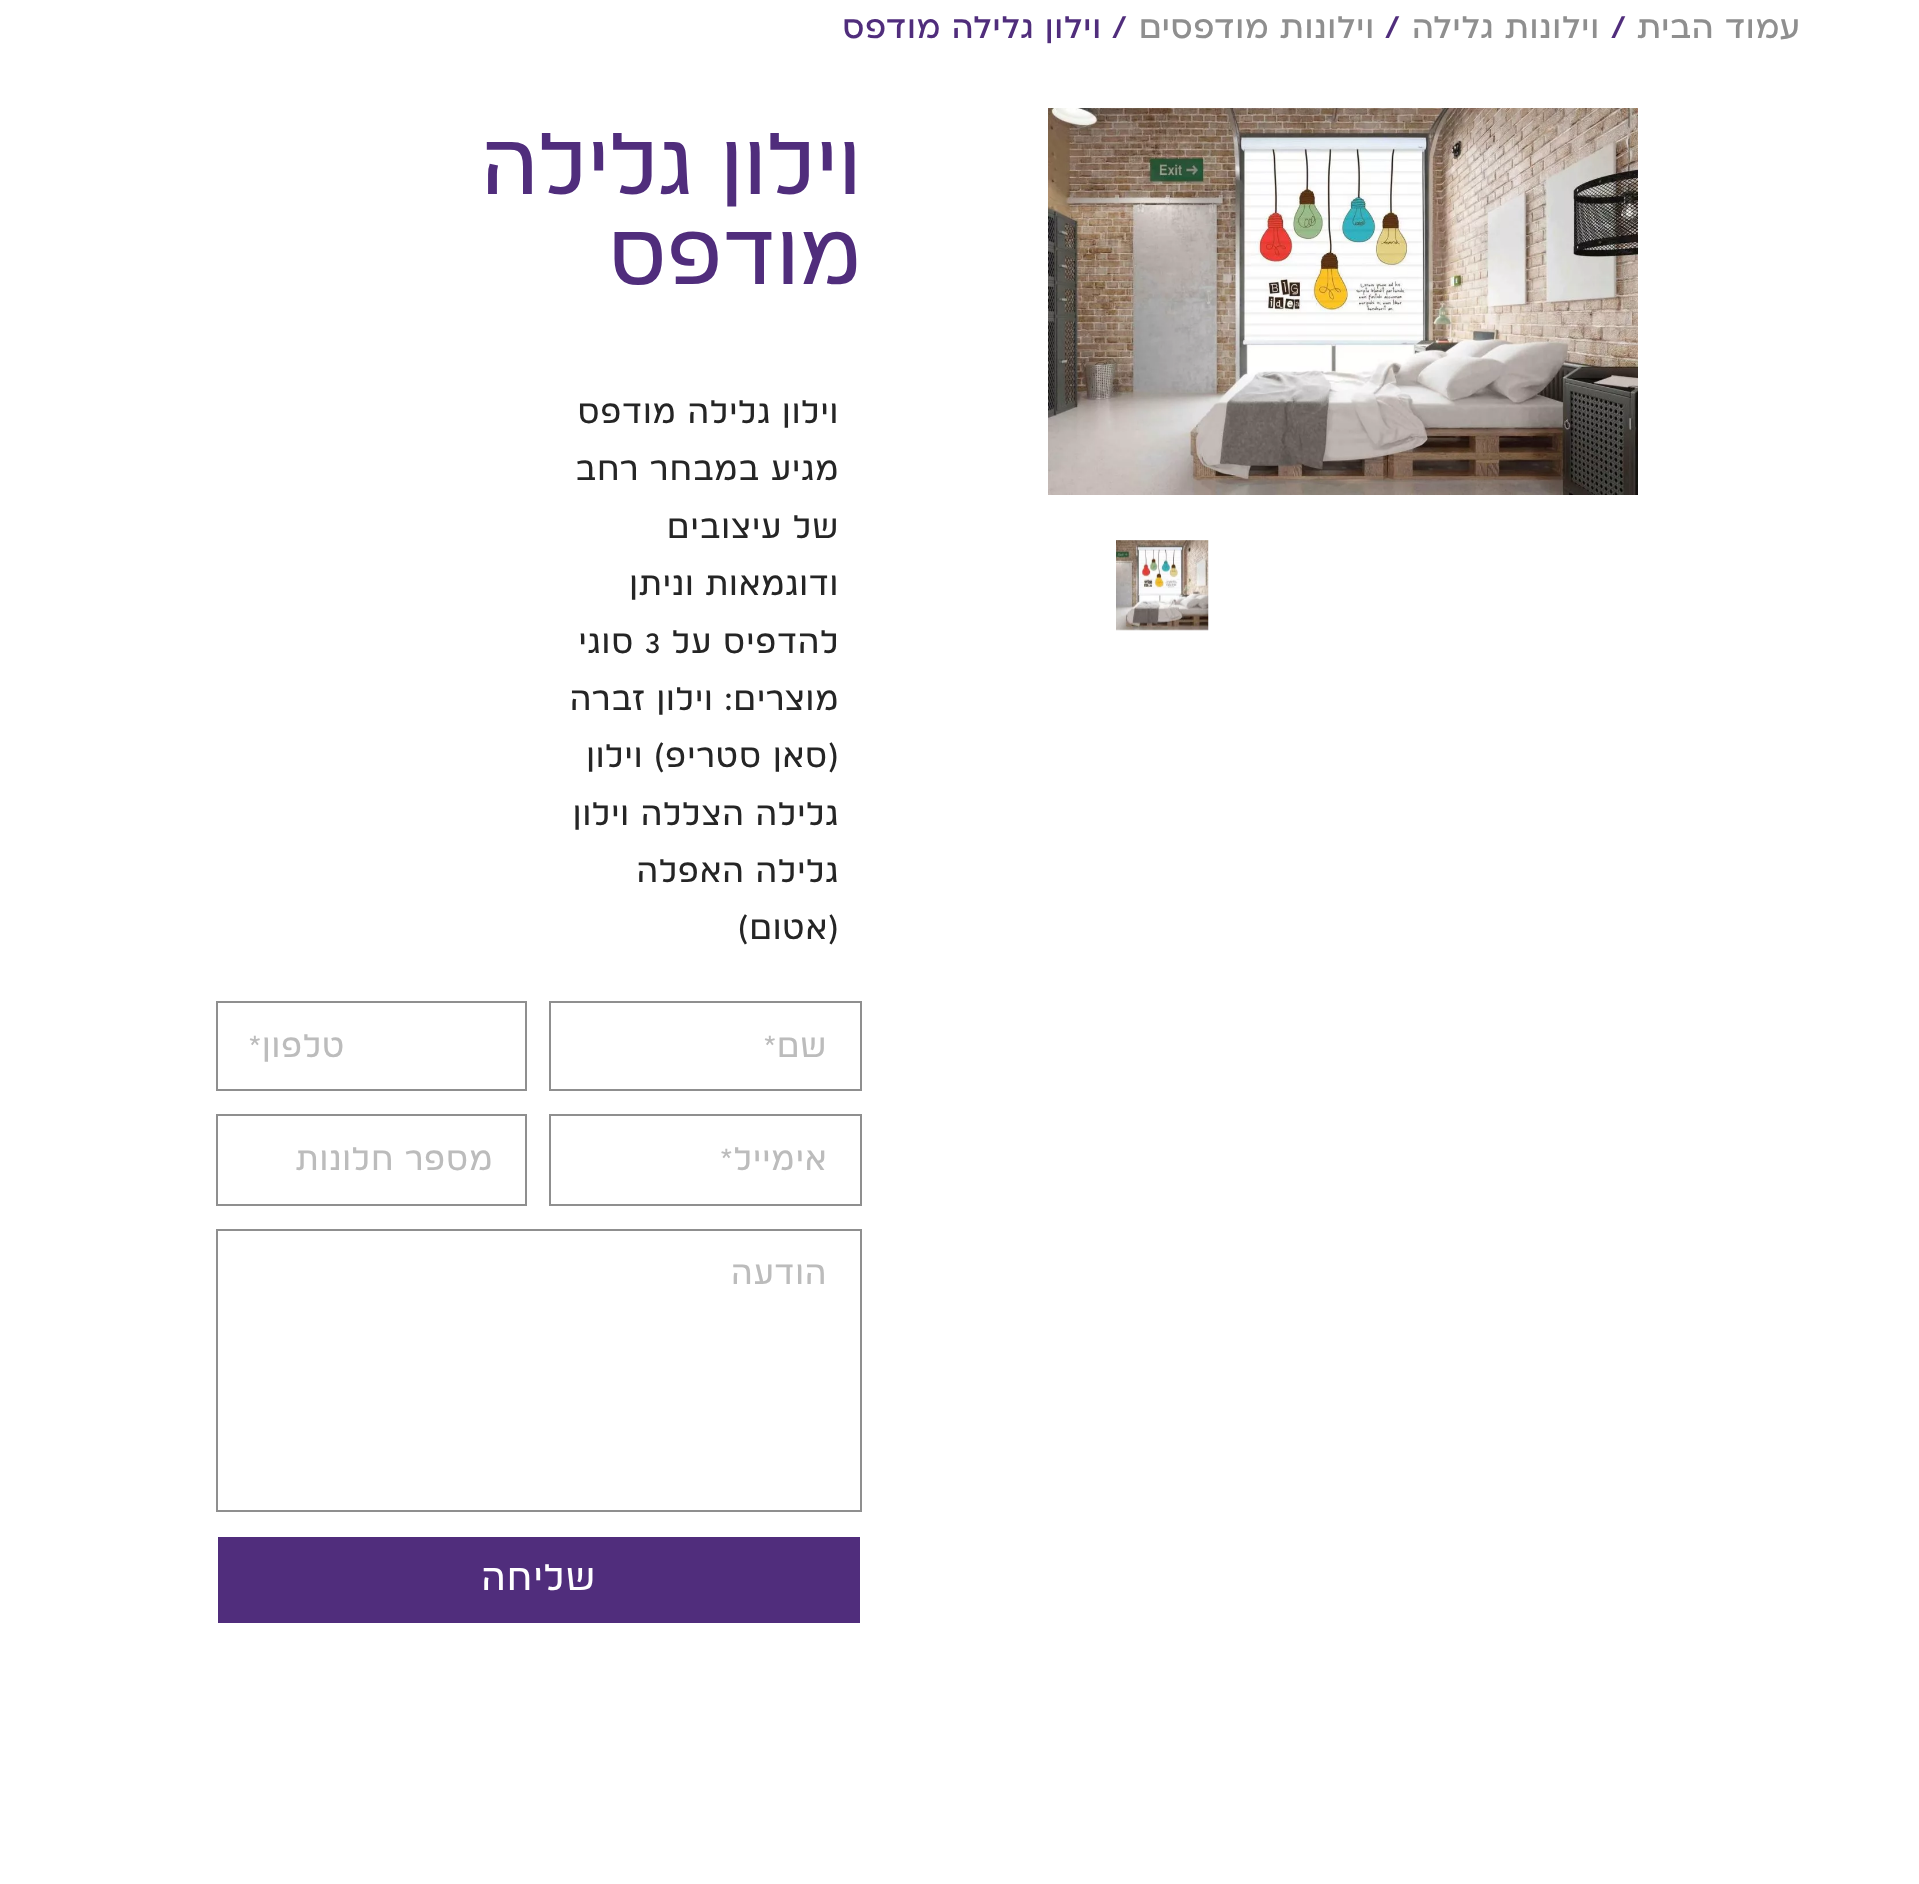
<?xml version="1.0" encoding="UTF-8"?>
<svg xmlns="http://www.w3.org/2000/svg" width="1919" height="1884">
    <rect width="100%" height="100%" fill="#FFFFFF"/>
    <text x="1801" y="38" font-family="'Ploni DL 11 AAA'" font-size="36" font-weight="500" letter-spacing="1.1" direction="rtl" fill="#8F8F8F">עמוד הבית</text>
    <text x="1611" y="38" font-family="'Ploni DL 11 AAA'" font-size="36" font-weight="500" letter-spacing="1.1" fill="#502D7C">/</text>
    <text x="1600" y="38" font-family="'Ploni DL 11 AAA'" font-size="36" font-weight="500" letter-spacing="1.1" direction="rtl" fill="#8F8F8F">וילונות גלילה</text>
    <text x="1385" y="38" font-family="'Ploni DL 11 AAA'" font-size="36" font-weight="500" letter-spacing="1.1" fill="#502D7C">/</text>
    <text x="1375" y="38" font-family="'Ploni DL 11 AAA'" font-size="36" font-weight="500" letter-spacing="1.1" direction="rtl" fill="#8F8F8F">וילונות מודפסים</text>
    <text x="1112" y="38" font-family="'Ploni DL 11 AAA'" font-size="36" font-weight="500" letter-spacing="1.1" fill="#502D7C">/</text>
    <text x="1102" y="38" font-family="'Ploni DL 11 AAA'" font-size="36" font-weight="500" letter-spacing="1.1" direction="rtl" fill="#502D7C">וילון גלילה מודפס</text>
    <image x="1048" y="108" width="590" height="387" href="img_01.png"/>
    <image x="1116" y="540" width="93" height="91" href="img_02.png"/>
    <text font-family="'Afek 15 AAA'" font-size="90" font-weight="500" letter-spacing="-1.5" direction="rtl" fill="#502D7C">
        <tspan x="861" y="194">וילון גלילה</tspan>
        <tspan x="861" y="284">מודפס</tspan>
    </text>
    <text font-family="'Afek 15 AAA'" font-size="33.75" font-weight="500" letter-spacing="0.25" direction="rtl" fill="#252525">
        <tspan x="839" y="423">וילון גלילה מודפס</tspan>
        <tspan x="839" y="480">מגיע במבחר רחב</tspan>
        <tspan x="839" y="538">של עיצובים</tspan>
        <tspan x="839" y="595">ודוגמאות וניתן</tspan>
        <tspan x="839" y="653">להדפיס על</tspan>
    </text>
    <text x="645" y="653" font-family="'Afek 15 AAA'" font-size="33.75" font-weight="500" letter-spacing="0.25" fill="#252525">3</text>
    <text x="634" y="653" font-family="'Afek 15 AAA'" font-size="33.75" font-weight="500" letter-spacing="0.25" direction="rtl" fill="#252525">סוגי</text>
    <text font-family="'Afek 15 AAA'" font-size="33.75" font-weight="500" letter-spacing="0.25" direction="rtl" fill="#252525">
        <tspan x="839" y="710">מוצרים: וילון זברה</tspan>
        <tspan x="839" y="767">(סאן סטריפ) וילון</tspan>
        <tspan x="839" y="825">גלילה הצללה וילון</tspan>
        <tspan x="839" y="882">גלילה האפלה</tspan>
        <tspan x="839" y="939">(אטום)</tspan>
    </text>
    <rect x="550" y="1002" width="311" height="88" fill="none" stroke="#8F8F8F" stroke-width="2"/>
    <text x="827" y="1057" font-family="'Afek 15 AAA'" font-size="33.75" font-weight="500" letter-spacing="0.25" direction="rtl" fill="#BCBCBC">שם*</text>
    <rect x="217" y="1002" width="309" height="88" fill="none" stroke="#8F8F8F" stroke-width="2"/>
    <text x="345" y="1057" font-family="'Afek 15 AAA'" font-size="33.75" font-weight="500" letter-spacing="0.25" direction="rtl" fill="#BCBCBC">טלפון*</text>
    <rect x="550" y="1115" width="311" height="90" fill="none" stroke="#8F8F8F" stroke-width="2"/>
    <text x="827" y="1170" font-family="'Afek 15 AAA'" font-size="33.75" font-weight="500" letter-spacing="0.25" direction="rtl" fill="#BCBCBC">אימייל*</text>
    <rect x="217" y="1115" width="309" height="90" fill="none" stroke="#8F8F8F" stroke-width="2"/>
    <text x="493" y="1170" font-family="'Afek 15 AAA'" font-size="33.75" font-weight="500" letter-spacing="0.25" direction="rtl" fill="#BCBCBC">מספר חלונות</text>
    <rect x="217" y="1230" width="644" height="281" fill="none" stroke="#8F8F8F" stroke-width="2"/>
    <text x="827" y="1284" font-family="'Afek 15 AAA'" font-size="33.75" font-weight="500" letter-spacing="0.25" direction="rtl" fill="#BCBCBC">הודעה</text>
    <rect x="218" y="1537" width="642" height="86" fill="#502D7C"/>
    <text x="596" y="1590" font-family="'Afek 15 AAA'" font-size="38" font-weight="500" letter-spacing="0.5" direction="rtl" fill="#FFFFFF">שליחה</text>
</svg>
